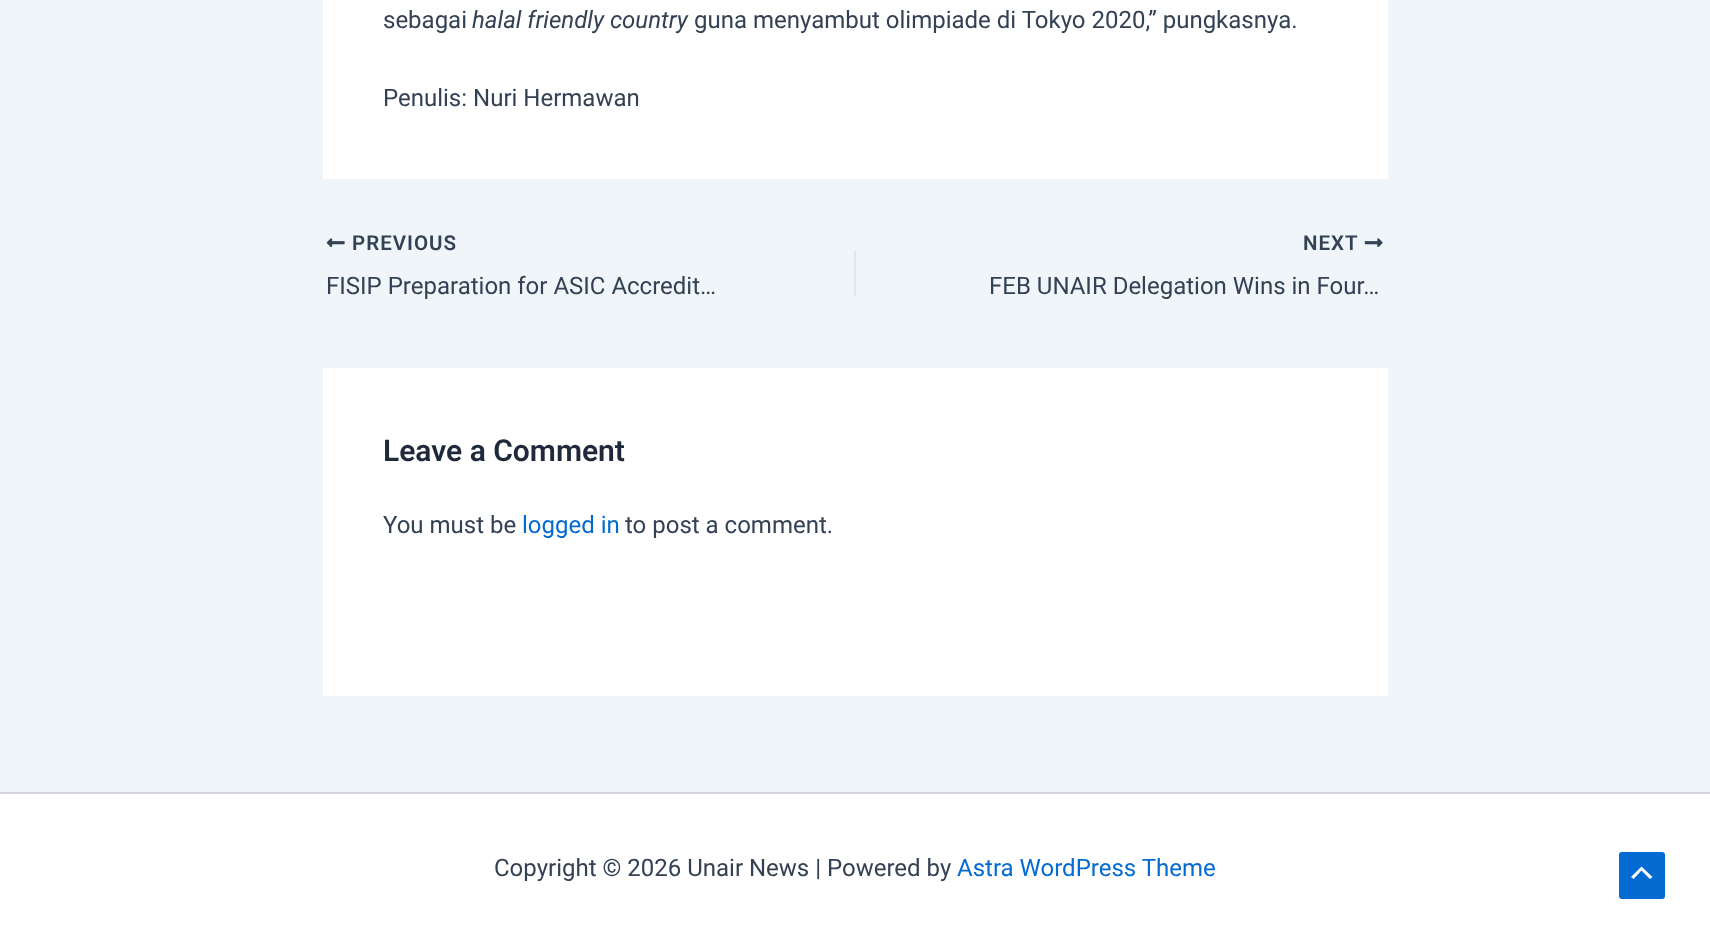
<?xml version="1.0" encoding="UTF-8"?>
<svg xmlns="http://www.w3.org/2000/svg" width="1710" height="943">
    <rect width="100%" height="100%" fill="#F0F5FA"/>
    <rect x="323" y="0" width="1065" height="179" fill="#FFFFFF"/>
    <text x="383" y="28" font-family="Roboto" font-size="24" fill="#334155">sebagai</text>
    <text x="472" y="28" font-family="Roboto" font-size="24" font-style="italic" fill="#334155">halal friendly country</text>
    <text x="694" y="28" font-family="Roboto" font-size="24" fill="#334155">guna menyambut olimpiade di Tokyo 2020,” pungkasnya.</text>
    <text x="383" y="106" font-family="Roboto" font-size="24" fill="#334155">Penulis: Nuri Hermawan</text>
    <image x="326" y="238" width="19" height="9" href="img_01.png"/>
    <text x="352" y="250" font-family="Roboto" font-size="20.5" font-weight="600" letter-spacing="1" fill="#334155">PREVIOUS</text>
    <text x="326" y="294" font-family="Roboto" font-size="24" fill="#334155">FISIP Preparation for ASIC Accredit…</text>
    <rect x="854" y="251" width="2" height="45" fill="#E1E8ED"/>
    <text x="1303" y="250" font-family="Roboto" font-size="20.5" font-weight="600" letter-spacing="1" fill="#334155">NEXT</text>
    <image x="1364" y="238" width="19" height="9" href="img_02.png"/>
    <text x="989" y="294" font-family="Roboto" font-size="24" fill="#334155">FEB UNAIR Delegation Wins in Four…</text>
    <rect x="323" y="368" width="1065" height="328" fill="#FFFFFF"/>
    <text x="383" y="461" font-family="Roboto" font-size="30" font-weight="600" fill="#1E293B">Leave a Comment</text>
    <text x="383" y="533" font-family="Roboto" font-size="24" fill="#334155">You must be</text>
    <text x="522" y="533" font-family="Roboto" font-size="24" fill="#046BD2">logged in</text>
    <text x="625" y="533" font-family="Roboto" font-size="24" fill="#334155">to post a comment.</text>
    <rect x="0" y="794" width="1710" height="149" fill="#FFFFFF"/>
    <rect x="0" y="792" width="1710" height="2" fill="#D1D5DB"/>
    <text x="494" y="876" font-family="Roboto" font-size="24" fill="#334155">Copyright © 2026 Unair News | Powered by</text>
    <text x="957" y="876" font-family="Roboto" font-size="24" fill="#046BD2">Astra WordPress Theme</text>
    <rect x="1619" y="852" width="46" height="47" rx="3" fill="#046BD2"/>
    <path d="M 1652.5 877 L 1641.5 866.5 L 1631 877 L 1633.5 879 L 1641.5 870.5 L 1650 879 Z" fill="#FFFFFF"/>
</svg>
